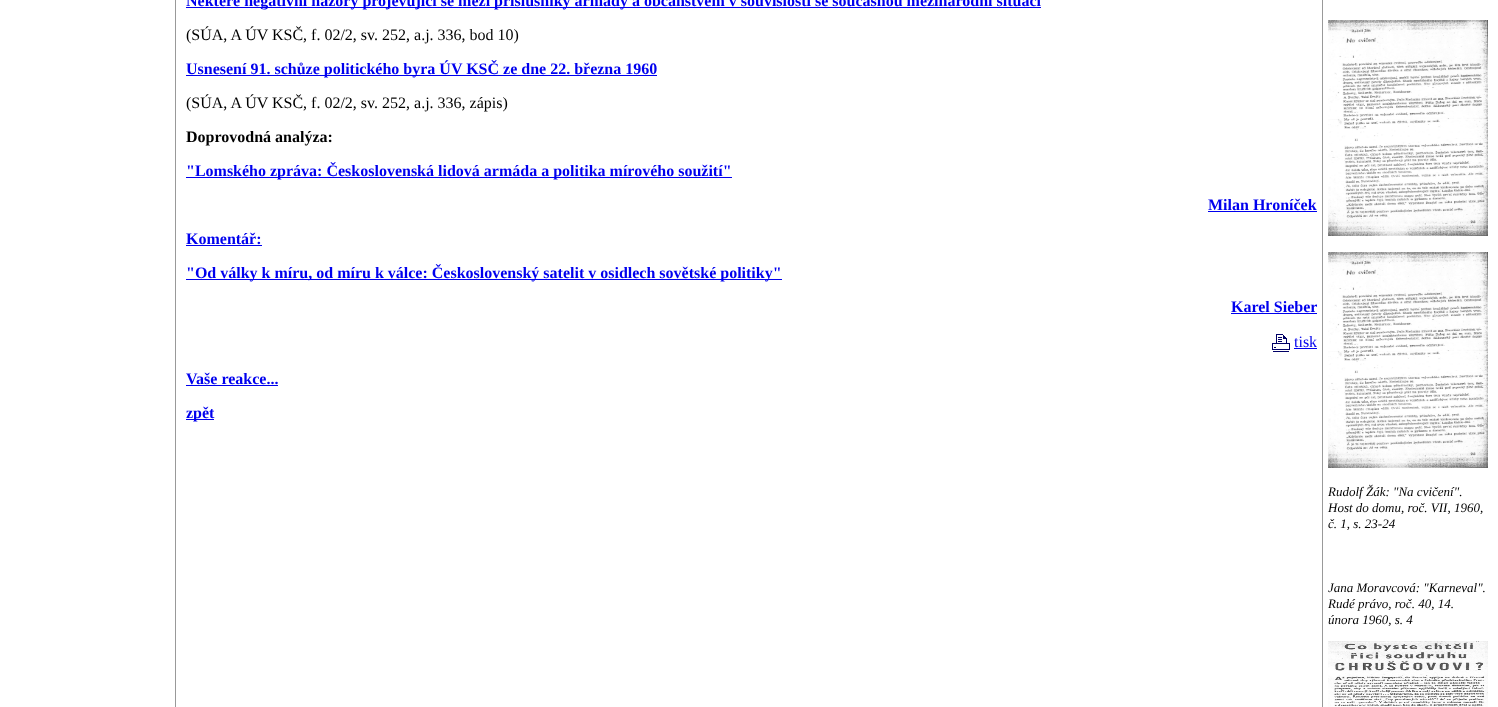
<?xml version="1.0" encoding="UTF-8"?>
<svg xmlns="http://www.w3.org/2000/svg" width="1498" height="707">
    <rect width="100%" height="100%" fill="#FFFFFF"/>
    <rect x="175" y="0" width="1" height="707" fill="#999999"/>
    <rect x="186" y="7" width="855" height="1" fill="#0000EE"/>
    <text x="186" y="6" font-family="Liberation Serif" font-size="16" font-weight="700" fill="#0000EE">Některé negativní názory projevující se mezi příslušníky armády a občanstvem v souvislosti se současnou mezinárodní situací</text>
    <text x="186" y="40" font-family="Liberation Serif" font-size="16" fill="#000000">(SÚA, A ÚV KSČ, f. 02/2, sv. 252, a.j. 336, bod 10)</text>
    <rect x="186" y="75" width="471" height="1" fill="#0000EE"/>
    <text x="186" y="74" font-family="Liberation Serif" font-size="16" font-weight="700" fill="#0000EE">Usnesení 91. schůze politického byra ÚV KSČ ze dne 22. března 1960</text>
    <text x="186" y="108" font-family="Liberation Serif" font-size="16" fill="#000000">(SÚA, A ÚV KSČ, f. 02/2, sv. 252, a.j. 336, zápis)</text>
    <text x="186" y="142" font-family="Liberation Serif" font-size="16" font-weight="700" fill="#000000">Doprovodná analýza:</text>
    <rect x="186" y="177" width="546" height="1" fill="#0000EE"/>
    <text x="186" y="176" font-family="Liberation Serif" font-size="16" font-weight="700" fill="#0000EE">"Lomského zpráva: Československá lidová armáda a politika mírového soužití"</text>
    <text x="1208" y="210" font-family="Liberation Serif" font-size="16" font-weight="700" fill="#0000EE">Milan Hroníček</text>
    <rect x="1208" y="211" width="109" height="1" fill="#0000EE"/>
    <text x="186" y="244" font-family="Liberation Serif" font-size="16" font-weight="700" fill="#0000EE">Komentář:</text>
    <rect x="186" y="245" width="76" height="1" fill="#0000EE"/>
    <rect x="186" y="279" width="596" height="1" fill="#0000EE"/>
    <text x="186" y="278" font-family="Liberation Serif" font-size="16" font-weight="700" fill="#0000EE">"Od války k míru, od míru k válce: Československý satelit v osidlech sovětské politiky"</text>
    <text x="1231" y="312" font-family="Liberation Serif" font-size="16" font-weight="700" fill="#0000EE">Karel Sieber</text>
    <rect x="1231" y="313" width="86" height="1" fill="#0000EE"/>
    <image x="1272" y="334" width="18" height="18" href="img_01.png"/>
    <text x="1294" y="347" font-family="Liberation Serif" font-size="16" fill="#0000EE">tisk</text>
    <rect x="1294" y="348" width="23" height="1" fill="#0000EE"/>
    <text x="186" y="384" font-family="Liberation Serif" font-size="16" font-weight="700" fill="#0000EE">Vaše reakce...</text>
    <rect x="186" y="385" width="92" height="1" fill="#0000EE"/>
    <rect x="186" y="419" width="28" height="1" fill="#0000EE"/>
    <text x="186" y="418" font-family="Liberation Serif" font-size="16" font-weight="700" fill="#0000EE">zpět</text>
    <rect x="1322" y="0" width="1" height="707" fill="#999999"/>
    <image x="1328" y="20" width="160" height="216" href="img_02.png"/>
    <image x="1328" y="252" width="160" height="216" href="img_02.png"/>
    <text font-family="Liberation Serif" font-size="13" font-style="italic" fill="#000000">
        <tspan x="1328" y="496">Rudolf Žák: "Na cvičení".</tspan>
        <tspan x="1328" y="512">Host do domu, roč. VII, 1960,</tspan>
        <tspan x="1328" y="528">č. 1, s. 23-24</tspan>
    </text>
    <text font-family="Liberation Serif" font-size="13" font-style="italic" fill="#000000">
        <tspan x="1328" y="592">Jana Moravcová: "Karneval".</tspan>
        <tspan x="1328" y="608">Rudé právo, roč. 40, 14.</tspan>
        <tspan x="1328" y="624">února 1960, s. 4</tspan>
    </text>
    <image x="1328" y="641" width="160" height="66" href="img_03.png"/>
</svg>
